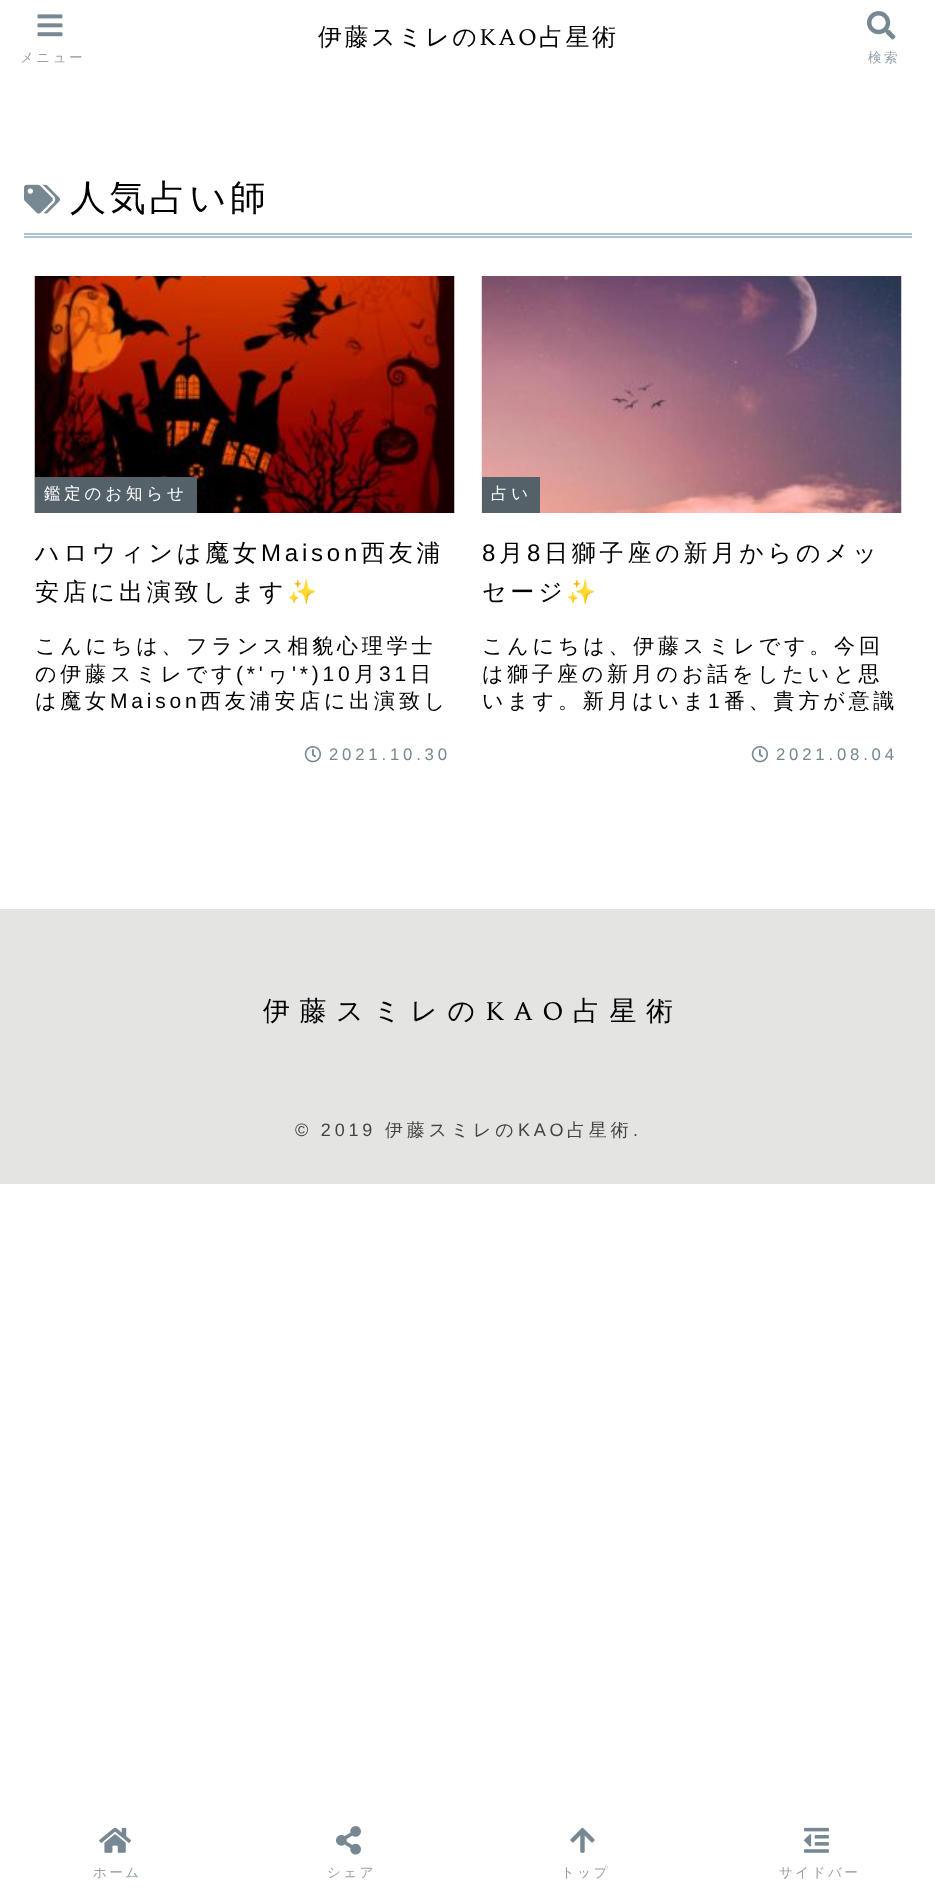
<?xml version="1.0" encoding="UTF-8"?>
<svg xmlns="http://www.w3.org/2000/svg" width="935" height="1889">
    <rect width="100%" height="100%" fill="#FFFFFF"/>
    <text x="318" y="45" font-family="WenQuanYi Zen Hei" font-size="24" font-weight="500" letter-spacing="2.5" fill="#000000">伊藤スミレの</text>
    <text x="479" y="45" font-family="Spectral" font-size="24" letter-spacing="2.5" fill="#000000">KAO</text>
    <text x="539" y="45" font-family="WenQuanYi Zen Hei" font-size="24" font-weight="500" letter-spacing="2.5" fill="#000000">占星術</text>
    <image x="37" y="14" width="26" height="23" href="img_01.png"/>
    <text x="20" y="62" font-family="WenQuanYi Zen Hei" font-size="13.5" font-weight="500" letter-spacing="2.5" fill="#92A0A9">メニュー</text>
    <image x="867" y="11" width="29" height="29" href="img_02.png"/>
    <text x="868" y="62" font-family="WenQuanYi Zen Hei" font-size="13.5" font-weight="500" letter-spacing="2.5" fill="#92A0A9">検索</text>
    <rect x="24" y="233" width="888" height="2" fill="#AAC2D2"/>
    <rect x="24" y="236" width="888" height="2" fill="#AAC2D2"/>
    <image x="24" y="184" width="36" height="30" href="img_03.png"/>
    <text x="70" y="210" font-family="WenQuanYi Zen Hei" font-size="36" font-weight="500" letter-spacing="3.8" fill="#000000">人気占い師</text>
    <image x="34" y="276" width="421" height="237" href="img_04.png"/>
    <rect x="35" y="477" width="162" height="36" fill="#556169"/>
    <text x="44" y="499" font-family="WenQuanYi Zen Hei" font-size="16.5" font-weight="500" letter-spacing="3.8" fill="#FFFFFF">鑑定のお知らせ</text>
    <text x="35" y="561" font-family="WenQuanYi Zen Hei" font-size="24" font-weight="500" letter-spacing="3.8" fill="#000000">ハロウィンは魔女</text>
    <text x="261" y="561" font-family="Liberation Sans" font-size="24" letter-spacing="3.8" fill="#000000">Maison</text>
    <text x="361" y="561" font-family="WenQuanYi Zen Hei" font-size="24" font-weight="500" letter-spacing="3.8" fill="#000000">西友浦</text>
    <text x="35" y="600" font-family="WenQuanYi Zen Hei" font-size="24" font-weight="500" letter-spacing="3.8" fill="#000000">安店に出演致します</text>
    <text x="287" y="600" font-family="Noto Color Emoji" font-size="24" letter-spacing="3.8" fill="#000000">✨</text>
    <text font-family="WenQuanYi Zen Hei" font-size="21" font-weight="500" letter-spacing="3.8" fill="#000000">
        <tspan x="35" y="653">こんにちは、フランス相貌心理学士</tspan>
        <tspan x="35" y="681">の伊藤スミレです</tspan>
    </text>
    <text x="236" y="681" font-family="Liberation Sans" font-size="21" letter-spacing="3.8" fill="#000000">(*'</text>
    <text x="267" y="681" font-family="WenQuanYi Zen Hei" font-size="21" font-weight="500" letter-spacing="3.8" fill="#000000">ヮ</text>
    <text x="292" y="681" font-family="Liberation Sans" font-size="21" letter-spacing="3.8" fill="#000000">'*)10</text>
    <text x="354" y="681" font-family="WenQuanYi Zen Hei" font-size="21" font-weight="500" letter-spacing="3.8" fill="#000000">月</text>
    <text x="379" y="681" font-family="Liberation Sans" font-size="21" letter-spacing="3.8" fill="#000000">31</text>
    <text x="410" y="681" font-family="WenQuanYi Zen Hei" font-size="21" font-weight="500" letter-spacing="3.8" fill="#000000">日</text>
    <text x="35" y="708" font-family="WenQuanYi Zen Hei" font-size="21" font-weight="500" letter-spacing="3.8" fill="#000000">は魔女</text>
    <text x="110" y="708" font-family="Liberation Sans" font-size="21" letter-spacing="3.8" fill="#000000">Maison</text>
    <text x="200" y="708" font-family="WenQuanYi Zen Hei" font-size="21" font-weight="500" letter-spacing="3.8" fill="#000000">西友浦安店に出演致し</text>
    <image x="304" y="746" width="17" height="17" href="img_05.png"/>
    <text x="329" y="760" font-family="Liberation Sans" font-size="16.75" letter-spacing="3.8" fill="#778893">2021.10.30</text>
    <image x="481" y="276" width="421" height="237" href="img_06.png"/>
    <rect x="482" y="477" width="58" height="36" fill="#556169"/>
    <text x="491" y="499" font-family="WenQuanYi Zen Hei" font-size="16.5" font-weight="500" letter-spacing="3.8" fill="#FFFFFF">占い</text>
    <text x="482" y="561" font-family="Liberation Sans" font-size="24" letter-spacing="3.8" fill="#000000">8</text>
    <text x="499" y="561" font-family="WenQuanYi Zen Hei" font-size="24" font-weight="500" letter-spacing="3.8" fill="#000000">月</text>
    <text x="527" y="561" font-family="Liberation Sans" font-size="24" letter-spacing="3.8" fill="#000000">8</text>
    <text x="544" y="561" font-family="WenQuanYi Zen Hei" font-size="24" font-weight="500" letter-spacing="3.8" fill="#000000">日獅子座の新月からのメッ</text>
    <text x="482" y="600" font-family="WenQuanYi Zen Hei" font-size="24" font-weight="500" letter-spacing="3.8" fill="#000000">セージ</text>
    <text x="566" y="600" font-family="Noto Color Emoji" font-size="24" letter-spacing="3.8" fill="#000000">✨</text>
    <text font-family="WenQuanYi Zen Hei" font-size="21" font-weight="500" letter-spacing="3.8" fill="#000000">
        <tspan x="482" y="653">こんにちは、伊藤スミレです。今回</tspan>
        <tspan x="482" y="681">は獅子座の新月のお話をしたいと思</tspan>
        <tspan x="482" y="708">います。新月はいま</tspan>
    </text>
    <text x="708" y="708" font-family="Liberation Sans" font-size="21" letter-spacing="3.8" fill="#000000">1</text>
    <text x="724" y="708" font-family="WenQuanYi Zen Hei" font-size="21" font-weight="500" letter-spacing="3.8" fill="#000000">番、貴方が意識</text>
    <image x="751" y="746" width="17" height="17" href="img_05.png"/>
    <text x="776" y="760" font-family="Liberation Sans" font-size="16.75" letter-spacing="3.8" fill="#778893">2021.08.04</text>
    <rect x="0" y="909" width="935" height="275" fill="#E4E4E3"/>
    <text x="263" y="1020" font-family="WenQuanYi Zen Hei" font-size="27" font-weight="500" letter-spacing="9.5" fill="#000000">伊藤スミレの</text>
    <text x="485" y="1020" font-family="Spectral" font-size="27" letter-spacing="9.5" fill="#000000">KAO</text>
    <text x="573" y="1020" font-family="WenQuanYi Zen Hei" font-size="27" font-weight="500" letter-spacing="9.5" fill="#000000">占星術</text>
    <text x="295" y="1136" font-family="Liberation Sans" font-size="18" letter-spacing="3.8" fill="#444444">© 2019</text>
    <text x="385" y="1136" font-family="WenQuanYi Zen Hei" font-size="18" font-weight="500" letter-spacing="3.8" fill="#444444">伊藤スミレの</text>
    <text x="518" y="1136" font-family="Liberation Sans" font-size="18" letter-spacing="3.8" fill="#444444">KAO</text>
    <text x="567" y="1136" font-family="WenQuanYi Zen Hei" font-size="18" font-weight="500" letter-spacing="3.8" fill="#444444">占星術</text>
    <text x="633" y="1136" font-family="Liberation Sans" font-size="18" letter-spacing="3.8" fill="#444444">.</text>
    <image x="99" y="1827" width="33" height="26" href="img_07.png"/>
    <text x="93" y="1877" font-family="WenQuanYi Zen Hei" font-size="13.5" font-weight="500" letter-spacing="2.5" fill="#92A0A9">ホーム</text>
    <image x="336" y="1826" width="25" height="29" href="img_08.png"/>
    <text x="327" y="1877" font-family="WenQuanYi Zen Hei" font-size="13.5" font-weight="500" letter-spacing="2.5" fill="#92A0A9">シェア</text>
    <image x="570" y="1827" width="25" height="26" href="img_09.png"/>
    <text x="561" y="1877" font-family="WenQuanYi Zen Hei" font-size="13.5" font-weight="500" letter-spacing="2.5" fill="#92A0A9">トップ</text>
    <image x="804" y="1827" width="25" height="26" href="img_10.png"/>
    <text x="779" y="1877" font-family="WenQuanYi Zen Hei" font-size="13.5" font-weight="500" letter-spacing="2.5" fill="#92A0A9">サイドバー</text>
</svg>
